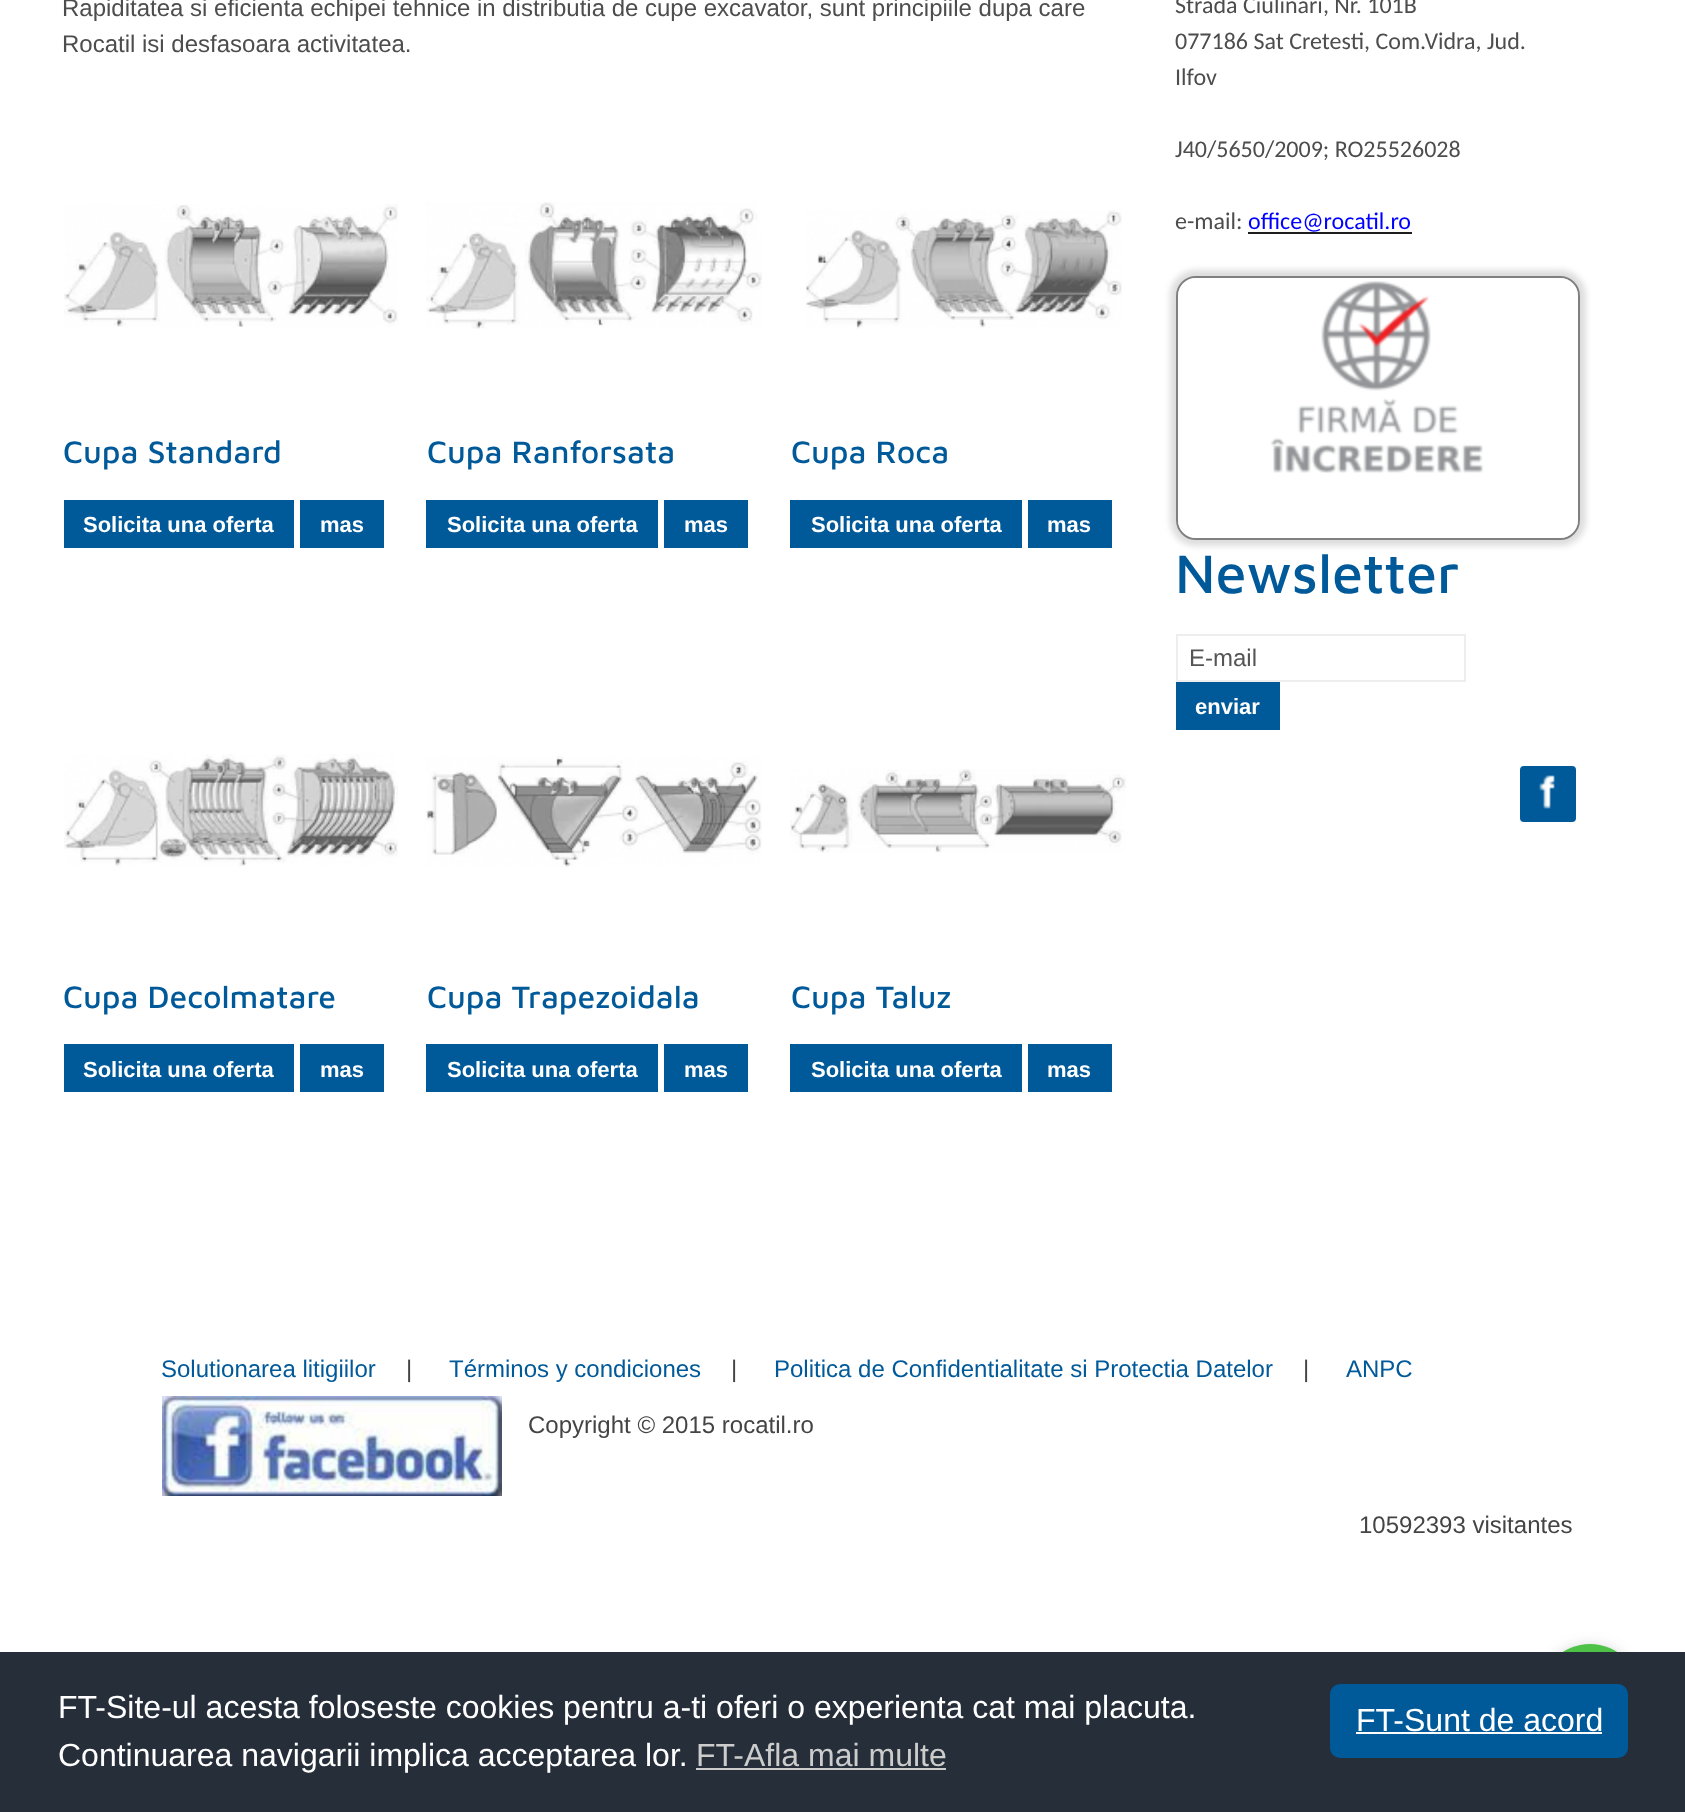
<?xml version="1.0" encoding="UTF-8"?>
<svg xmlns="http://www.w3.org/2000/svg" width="1685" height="1812">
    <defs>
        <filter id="blur1" x="-50%" y="-200%" width="200%" height="500%"><feGaussianBlur stdDeviation="3"/></filter>
        <filter id="blur2" x="-50%" y="-200%" width="200%" height="500%"><feGaussianBlur stdDeviation="7"/></filter>
    </defs>
    <rect width="100%" height="100%" fill="#FFFFFF"/>
    <text font-family="Liberation Sans" font-size="24" fill="#4D4D4D">
        <tspan x="62" y="16">Rapiditatea si eficienta echipei tehnice in distributia de cupe excavator, sunt principiile dupa care</tspan>
        <tspan x="62" y="52">Rocatil isi desfasoara activitatea.</tspan>
    </text>
    <image x="64" y="204" width="334" height="123" href="img_01.png"/>
    <text x="63" y="463" font-family="Maven Pro" font-size="32" font-weight="500" fill="#005999">Cupa Standard</text>
    <rect x="64" y="500" width="230" height="48" fill="#005999"/>
    <text x="83" y="532" font-family="Liberation Sans" font-size="22" font-weight="700" fill="#FFFFFF">Solicita una oferta</text>
    <rect x="300" y="500" width="84" height="48" fill="#005999"/>
    <text x="320" y="532" font-family="Liberation Sans" font-size="22" font-weight="700" fill="#FFFFFF">mas</text>
    <image x="426" y="202" width="336" height="127" href="img_02.png"/>
    <text x="427" y="463" font-family="Maven Pro" font-size="32" font-weight="500" fill="#005999">Cupa Ranforsata</text>
    <rect x="426" y="500" width="232" height="48" fill="#005999"/>
    <text x="447" y="532" font-family="Liberation Sans" font-size="22" font-weight="700" fill="#FFFFFF">Solicita una oferta</text>
    <rect x="664" y="500" width="84" height="48" fill="#005999"/>
    <text x="684" y="532" font-family="Liberation Sans" font-size="22" font-weight="700" fill="#FFFFFF">mas</text>
    <image x="805" y="210" width="317" height="119" href="img_03.png"/>
    <text x="791" y="463" font-family="Maven Pro" font-size="32" font-weight="500" fill="#005999">Cupa Roca</text>
    <rect x="790" y="500" width="232" height="48" fill="#005999"/>
    <text x="811" y="532" font-family="Liberation Sans" font-size="22" font-weight="700" fill="#FFFFFF">Solicita una oferta</text>
    <rect x="1028" y="500" width="84" height="48" fill="#005999"/>
    <text x="1047" y="532" font-family="Liberation Sans" font-size="22" font-weight="700" fill="#FFFFFF">mas</text>
    <image x="64" y="754" width="334" height="113" href="img_04.png"/>
    <text x="63" y="1008" font-family="Maven Pro" font-size="32" font-weight="500" fill="#005999">Cupa Decolmatare</text>
    <rect x="64" y="1044" width="230" height="48" fill="#005999"/>
    <text x="83" y="1077" font-family="Liberation Sans" font-size="22" font-weight="700" fill="#FFFFFF">Solicita una oferta</text>
    <rect x="300" y="1044" width="84" height="48" fill="#005999"/>
    <text x="320" y="1077" font-family="Liberation Sans" font-size="22" font-weight="700" fill="#FFFFFF">mas</text>
    <image x="426" y="756" width="336" height="111" href="img_05.png"/>
    <text x="427" y="1008" font-family="Maven Pro" font-size="32" font-weight="500" fill="#005999">Cupa Trapezoidala</text>
    <rect x="426" y="1044" width="232" height="48" fill="#005999"/>
    <text x="447" y="1077" font-family="Liberation Sans" font-size="22" font-weight="700" fill="#FFFFFF">Solicita una oferta</text>
    <rect x="664" y="1044" width="84" height="48" fill="#005999"/>
    <text x="684" y="1077" font-family="Liberation Sans" font-size="22" font-weight="700" fill="#FFFFFF">mas</text>
    <image x="790" y="769" width="336" height="84" href="img_06.png"/>
    <text x="791" y="1008" font-family="Maven Pro" font-size="32" font-weight="500" fill="#005999">Cupa Taluz</text>
    <rect x="790" y="1044" width="232" height="48" fill="#005999"/>
    <text x="811" y="1077" font-family="Liberation Sans" font-size="22" font-weight="700" fill="#FFFFFF">Solicita una oferta</text>
    <rect x="1028" y="1044" width="84" height="48" fill="#005999"/>
    <text x="1047" y="1077" font-family="Liberation Sans" font-size="22" font-weight="700" fill="#FFFFFF">mas</text>
    <text font-family="Carlito" font-size="24" fill="#4D4D4D">
        <tspan x="1175" y="13">Strada Ciulinari, Nr. 101B</tspan>
        <tspan x="1175" y="49">077186 Sat Cretesti, Com.Vidra, Jud.</tspan>
        <tspan x="1175" y="85">Ilfov</tspan>
    </text>
    <text x="1175" y="157" font-family="Carlito" font-size="24" fill="#4D4D4D">J40/5650/2009; RO25526028</text>
    <text x="1175" y="229" font-family="Carlito" font-size="24" fill="#4D4D4D">e-mail:</text>
    <text x="1248" y="229" font-family="Carlito" font-size="24" fill="#0000FF">office@rocatil.ro</text>
    <rect x="1248" y="232" width="164" height="2" fill="#1D1D1D"/>
    <rect x="1170" y="270" width="416" height="276" rx="26" fill="#DDDDDD" filter="url(#blur1)"/>
    <rect x="1177" y="277" width="402" height="262" rx="19" fill="none" stroke="#808080" stroke-width="2"/>
    <image x="1178" y="278" width="400" height="260" href="img_07.png"/>
    <text x="1175" y="593" font-family="Maven Pro" font-size="56" font-weight="500" fill="#005999">Newsletter</text>
    <rect x="1177" y="635" width="288" height="46" fill="none" stroke="#EEEEEE" stroke-width="2"/>
    <text x="1189" y="666" font-family="Liberation Sans" font-size="24" fill="#555555">E-mail</text>
    <rect x="1176" y="682" width="104" height="48" fill="#005999"/>
    <text x="1195" y="714" font-family="Liberation Sans" font-size="22" font-weight="700" fill="#FFFFFF">enviar</text>
    <rect x="1520" y="766" width="56" height="56" rx="4" fill="#005999"/>
    <image x="1539" y="775" width="16" height="34" href="img_08.png"/>
    <text x="161" y="1377" font-family="Liberation Sans" font-size="24" fill="#005999">Solutionarea litigiilor</text>
    <text x="406" y="1377" font-family="Liberation Sans" font-size="24" fill="#444444">|</text>
    <text x="449" y="1377" font-family="Liberation Sans" font-size="24" fill="#005999">Términos y condiciones</text>
    <text x="731" y="1377" font-family="Liberation Sans" font-size="24" fill="#444444">|</text>
    <text x="774" y="1377" font-family="Liberation Sans" font-size="24" fill="#005999">Politica de Confidentialitate si Protectia Datelor</text>
    <text x="1303" y="1377" font-family="Liberation Sans" font-size="24" fill="#444444">|</text>
    <text x="1346" y="1377" font-family="Liberation Sans" font-size="24" fill="#005999">ANPC</text>
    <image x="162" y="1396" width="340" height="100" href="img_09.png"/>
    <text x="528" y="1433" font-family="Liberation Sans" font-size="24" fill="#444444">Copyright © 2015 rocatil.ro</text>
    <text x="1359" y="1533" font-family="Liberation Sans" font-size="24" fill="#444444">10592393 visitantes</text>
    <rect x="1540" y="1646" width="100" height="100" rx="50" fill="#888888" fill-opacity="0.4" filter="url(#blur2)"/>
    <circle cx="1590" cy="1694" r="50" fill="#4DC247"/>
    <rect x="0" y="1652" width="1685" height="160" fill="#252E39"/>
    <text x="58" y="1718" font-family="Liberation Sans" font-size="32" fill="#FFFFFF">FT-Site-ul acesta foloseste cookies pentru a-ti oferi o experienta cat mai placuta.</text>
    <rect x="1330" y="1684" width="298" height="74" rx="10" fill="#005999"/>
    <text x="1356" y="1731" font-family="Liberation Sans" font-size="32" fill="#FFFFFF">FT-Sunt de acord</text>
    <rect x="1356" y="1732" width="246" height="2" fill="#FFFFFF"/>
    <text x="58" y="1766" font-family="Liberation Sans" font-size="32" fill="#FFFFFF">Continuarea navigarii implica acceptarea lor.</text>
    <text x="696" y="1766" font-family="Liberation Sans" font-size="32" fill="#CCCCCC">FT-Afla mai multe</text>
    <rect x="696" y="1768" width="250" height="2" fill="#CCCCCC"/>
</svg>
